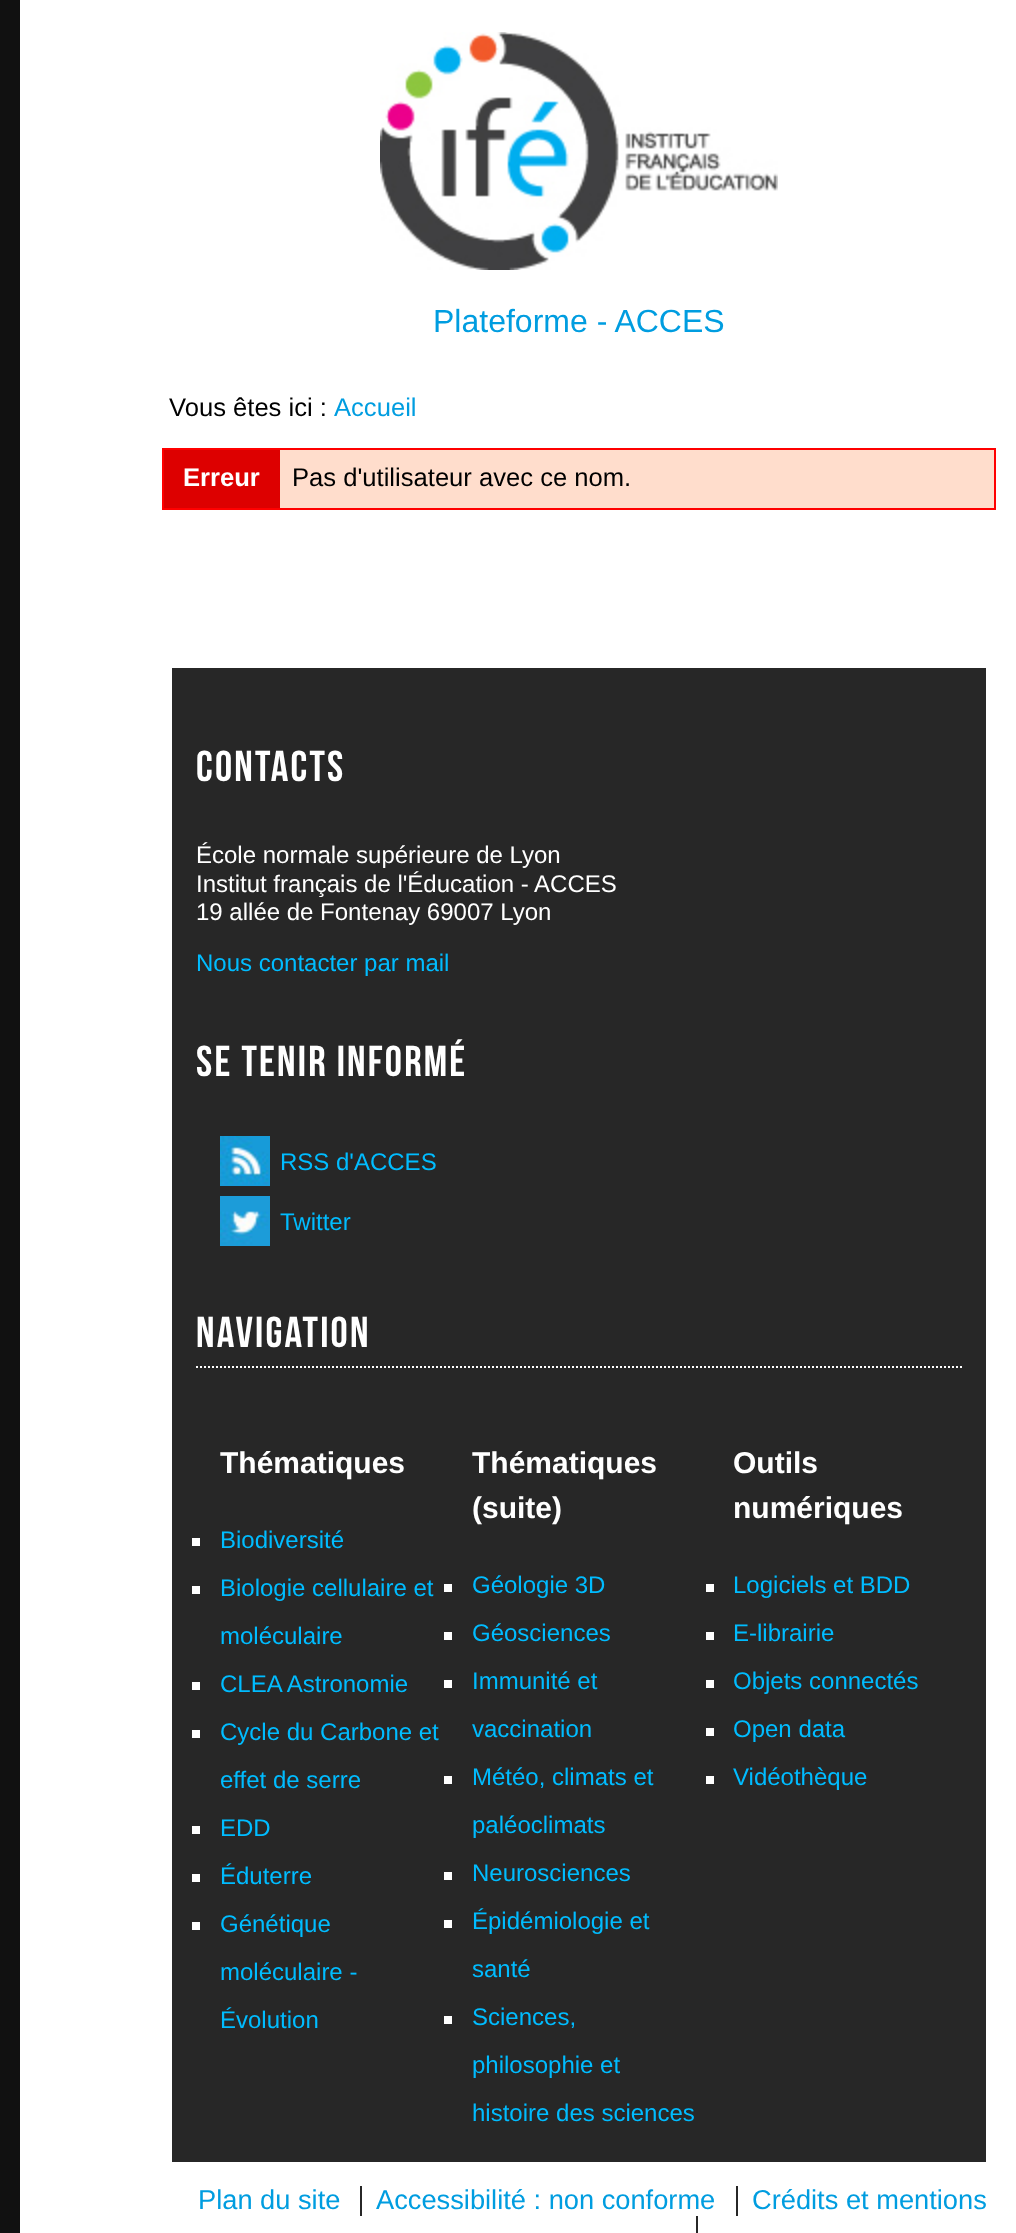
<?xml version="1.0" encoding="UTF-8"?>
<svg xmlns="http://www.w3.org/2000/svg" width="1016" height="2233">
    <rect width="100%" height="100%" fill="#FFFFFF"/>
    <rect x="0" y="0" width="20" height="2233" fill="#111111"/>
    <image x="380" y="32" width="398" height="238" href="img_01.png"/>
    <text x="433" y="332" font-family="Liberation Sans" font-size="32" fill="#009DE0">Plateforme - ACCES</text>
    <text x="169" y="416" font-family="Liberation Sans" font-size="25.6" fill="#000000">Vous êtes ici :</text>
    <text x="334" y="416" font-family="Liberation Sans" font-size="25.6" fill="#009DE0">Accueil</text>
    <rect x="163" y="449" width="832" height="60" fill="none" stroke="#FF0000" stroke-width="2"/>
    <rect x="164" y="450" width="116" height="58" fill="#DD0000"/>
    <text x="183" y="486" font-family="Liberation Sans" font-size="25.6" font-weight="700" fill="#FFFFFF">Erreur</text>
    <rect x="280" y="450" width="714" height="58" fill="#FFDDCC"/>
    <text x="292" y="486" font-family="Liberation Sans" font-size="25.6" fill="#000000">Pas d'utilisateur avec ce nom.</text>
    <rect x="172" y="668" width="814" height="1494" fill="#272727"/>
    <text x="196" y="781" font-family="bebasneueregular" font-size="43.25" letter-spacing="2.2" fill="#FFFFFF">Contacts</text>
    <text font-family="Liberation Sans" font-size="24" fill="#FFFFFF">
        <tspan x="196" y="863">École normale supérieure de Lyon</tspan>
        <tspan x="196" y="892">Institut français de l'Éducation - ACCES</tspan>
        <tspan x="196" y="920">19 allée de Fontenay 69007 Lyon</tspan>
    </text>
    <text x="196" y="971" font-family="Liberation Sans" font-size="24" fill="#00BCFF">Nous contacter par mail</text>
    <text x="196" y="1076" font-family="bebasneueregular" font-size="43.25" letter-spacing="2.2" fill="#FFFFFF">Se tenir informé</text>
    <image x="220" y="1136" width="50" height="50" href="img_02.png"/>
    <text x="280" y="1170" font-family="Liberation Sans" font-size="24" fill="#00BCFF">RSS d'ACCES</text>
    <image x="220" y="1196" width="50" height="50" href="img_03.png"/>
    <text x="280" y="1230" font-family="Liberation Sans" font-size="24" fill="#00BCFF">Twitter</text>
    <path d="M 196 1367 H 962" fill="none" stroke="#FFFFFF" stroke-width="2" stroke-dasharray="2 2"/>
    <text x="196" y="1347" font-family="bebasneueregular" font-size="43.25" letter-spacing="2.2" fill="#FFFFFF">Navigation</text>
    <text x="220" y="1473" font-family="Liberation Sans" font-size="30" font-weight="700" fill="#FFFFFF">Thématiques</text>
    <rect x="192" y="1538" width="8" height="8" fill="#FFFFFF"/>
    <text x="220" y="1548" font-family="Liberation Sans" font-size="24" fill="#00BCFF">Biodiversité</text>
    <rect x="192" y="1586" width="8" height="8" fill="#FFFFFF"/>
    <text x="220" y="1596" font-family="Liberation Sans" font-size="24" fill="#00BCFF">Biologie cellulaire et</text>
    <text x="220" y="1644" font-family="Liberation Sans" font-size="24" fill="#00BCFF">moléculaire</text>
    <rect x="192" y="1682" width="8" height="8" fill="#FFFFFF"/>
    <text x="220" y="1692" font-family="Liberation Sans" font-size="24" fill="#00BCFF">CLEA Astronomie</text>
    <rect x="192" y="1730" width="8" height="8" fill="#FFFFFF"/>
    <text x="220" y="1740" font-family="Liberation Sans" font-size="24" fill="#00BCFF">Cycle du Carbone et</text>
    <text x="220" y="1788" font-family="Liberation Sans" font-size="24" fill="#00BCFF">effet de serre</text>
    <rect x="192" y="1826" width="8" height="8" fill="#FFFFFF"/>
    <text x="220" y="1836" font-family="Liberation Sans" font-size="24" fill="#00BCFF">EDD</text>
    <rect x="192" y="1874" width="8" height="8" fill="#FFFFFF"/>
    <text x="220" y="1884" font-family="Liberation Sans" font-size="24" fill="#00BCFF">Éduterre</text>
    <rect x="192" y="1922" width="8" height="8" fill="#FFFFFF"/>
    <text x="220" y="1932" font-family="Liberation Sans" font-size="24" fill="#00BCFF">Génétique</text>
    <text x="220" y="1980" font-family="Liberation Sans" font-size="24" fill="#00BCFF">moléculaire -</text>
    <text x="220" y="2028" font-family="Liberation Sans" font-size="24" fill="#00BCFF">Évolution</text>
    <text font-family="Liberation Sans" font-size="30" font-weight="700" fill="#FFFFFF">
        <tspan x="472" y="1473">Thématiques</tspan>
        <tspan x="472" y="1518">(suite)</tspan>
    </text>
    <rect x="444" y="1584" width="8" height="8" fill="#FFFFFF"/>
    <text x="472" y="1593" font-family="Liberation Sans" font-size="24" fill="#00BCFF">Géologie 3D</text>
    <rect x="444" y="1632" width="8" height="8" fill="#FFFFFF"/>
    <text x="472" y="1641" font-family="Liberation Sans" font-size="24" fill="#00BCFF">Géosciences</text>
    <rect x="444" y="1680" width="8" height="8" fill="#FFFFFF"/>
    <text x="472" y="1689" font-family="Liberation Sans" font-size="24" fill="#00BCFF">Immunité et</text>
    <text x="472" y="1737" font-family="Liberation Sans" font-size="24" fill="#00BCFF">vaccination</text>
    <rect x="444" y="1776" width="8" height="8" fill="#FFFFFF"/>
    <text x="472" y="1785" font-family="Liberation Sans" font-size="24" fill="#00BCFF">Météo, climats et</text>
    <text x="472" y="1833" font-family="Liberation Sans" font-size="24" fill="#00BCFF">paléoclimats</text>
    <rect x="444" y="1872" width="8" height="8" fill="#FFFFFF"/>
    <text x="472" y="1881" font-family="Liberation Sans" font-size="24" fill="#00BCFF">Neurosciences</text>
    <rect x="444" y="1920" width="8" height="8" fill="#FFFFFF"/>
    <text x="472" y="1929" font-family="Liberation Sans" font-size="24" fill="#00BCFF">Épidémiologie et</text>
    <text x="472" y="1977" font-family="Liberation Sans" font-size="24" fill="#00BCFF">santé</text>
    <rect x="444" y="2016" width="8" height="8" fill="#FFFFFF"/>
    <text x="472" y="2025" font-family="Liberation Sans" font-size="24" fill="#00BCFF">Sciences,</text>
    <text x="472" y="2073" font-family="Liberation Sans" font-size="24" fill="#00BCFF">philosophie et</text>
    <text x="472" y="2121" font-family="Liberation Sans" font-size="24" fill="#00BCFF">histoire des sciences</text>
    <text font-family="Liberation Sans" font-size="30" font-weight="700" fill="#FFFFFF">
        <tspan x="733" y="1473">Outils</tspan>
        <tspan x="733" y="1518">numériques</tspan>
    </text>
    <rect x="706" y="1584" width="8" height="8" fill="#FFFFFF"/>
    <text x="733" y="1593" font-family="Liberation Sans" font-size="24" fill="#00BCFF">Logiciels et BDD</text>
    <rect x="706" y="1632" width="8" height="8" fill="#FFFFFF"/>
    <text x="733" y="1641" font-family="Liberation Sans" font-size="24" fill="#00BCFF">E-librairie</text>
    <rect x="706" y="1680" width="8" height="8" fill="#FFFFFF"/>
    <text x="733" y="1689" font-family="Liberation Sans" font-size="24" fill="#00BCFF">Objets connectés</text>
    <rect x="706" y="1728" width="8" height="8" fill="#FFFFFF"/>
    <text x="733" y="1737" font-family="Liberation Sans" font-size="24" fill="#00BCFF">Open data</text>
    <rect x="706" y="1776" width="8" height="8" fill="#FFFFFF"/>
    <text x="733" y="1785" font-family="Liberation Sans" font-size="24" fill="#00BCFF">Vidéothèque</text>
    <text x="198" y="2209" font-family="Liberation Sans" font-size="27.25" fill="#009DE0">Plan du site</text>
    <text x="376" y="2209" font-family="Liberation Sans" font-size="27.25" fill="#009DE0">Accessibilité : non conforme</text>
    <rect x="360" y="2186" width="2" height="30" fill="#272727"/>
    <text x="752" y="2209" font-family="Liberation Sans" font-size="27.25" fill="#009DE0">Crédits et mentions</text>
    <rect x="736" y="2186" width="2" height="30" fill="#272727"/>
    <rect x="696" y="2216" width="2" height="17" fill="#272727"/>
</svg>
